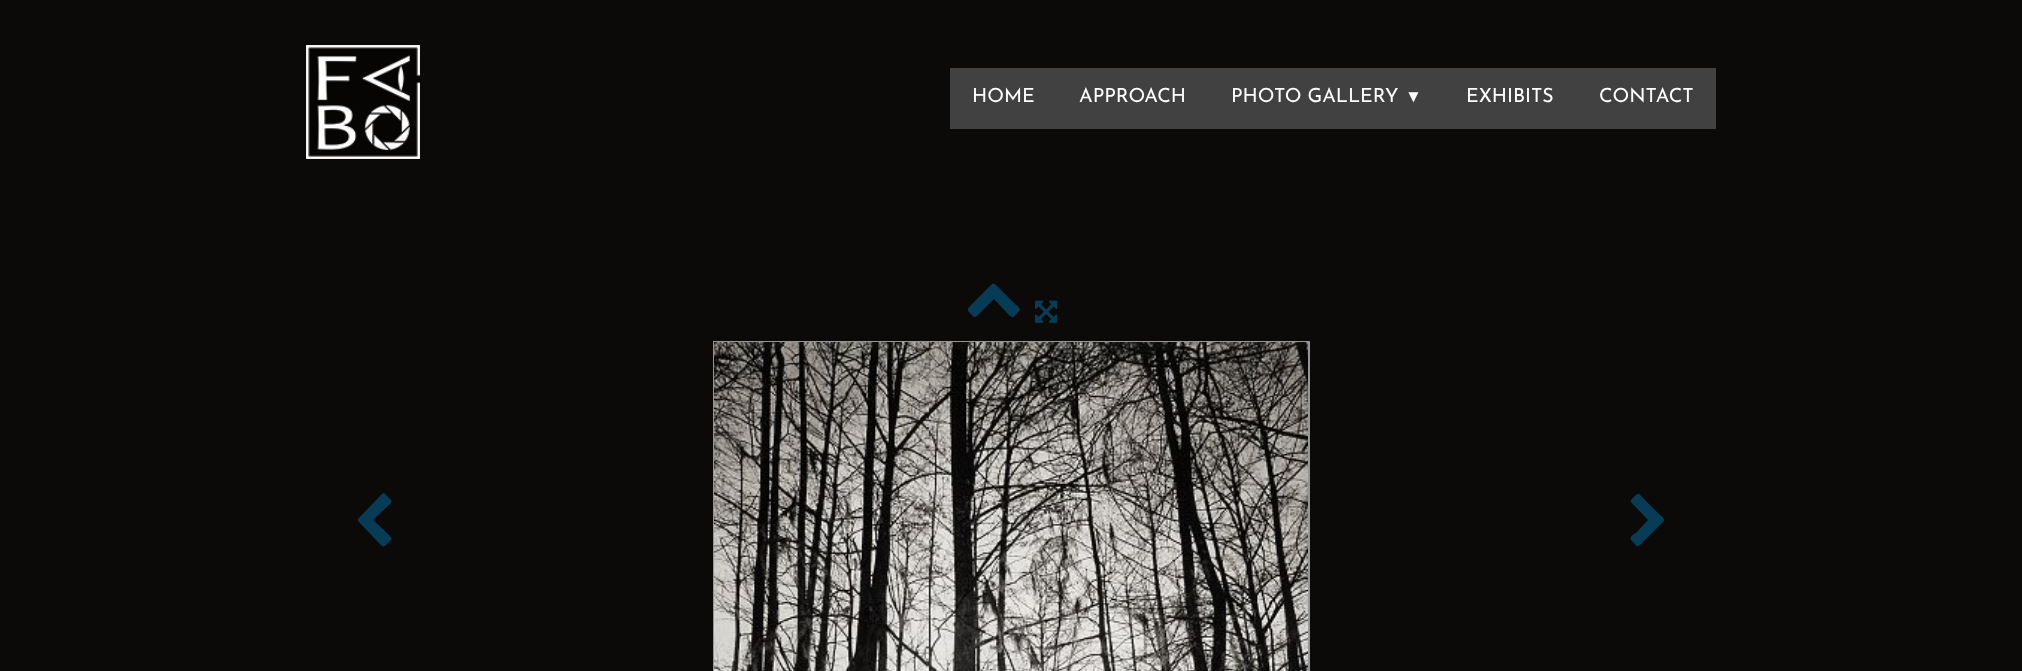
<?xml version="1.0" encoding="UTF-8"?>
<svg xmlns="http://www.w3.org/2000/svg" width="2022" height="671">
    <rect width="100%" height="100%" fill="#0C0A09"/>
    <image x="306" y="45" width="114" height="114" href="img_01.png"/>
    <rect x="950" y="68" width="766" height="61" fill="#424141"/>
    <text x="972" y="102" font-family="Josefin Sans" font-size="19.5" font-weight="100" fill="#FFFFFF">HOME</text>
    <text x="1079" y="102" font-family="Josefin Sans" font-size="19.5" font-weight="100" fill="#FFFFFF">APPROACH</text>
    <text x="1231" y="102" font-family="Josefin Sans" font-size="19.5" font-weight="100" fill="#FFFFFF">PHOTO GALLERY</text>
    <text x="1405" y="102" font-family="Liberation Sans" font-size="17" fill="#FFFFFF">▼</text>
    <text x="1466" y="102" font-family="Josefin Sans" font-size="19.5" font-weight="100" fill="#FFFFFF">EXHIBITS</text>
    <text x="1599" y="102" font-family="Josefin Sans" font-size="19.5" font-weight="100" fill="#FFFFFF">CONTACT</text>
    <path d="M 1019 311 C 1013 317 1014 320 1008 314 L 994 299 L 979 314 C 974 319 975 318 969 312 C 966 309 969 308 972 304 L 988 288 C 994 282 993 282 999 288 L 1015 304 C 1016 305 1022 309 1019 311 Z" fill="#073C57"/>
    <image x="1035" y="300" width="23" height="23" href="img_02.png"/>
    <rect x="714" y="342" width="595" height="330" fill="none" stroke="#969696" stroke-width="2"/>
    <path d="M 391 503 L 373 520 L 388 534 C 392 539 393 538 389 542 C 383 548 384 548 378 542 L 358 521 V 519 L 382 494 C 384 492 386 495 387 496 L 391 500 C 392 501 391 502 391 503 Z" fill="#073C57"/>
    <image x="714" y="342" width="594" height="329" href="img_03.png"/>
    <path d="M 1664 521 L 1643 542 C 1637 548 1638 548 1632 541 C 1628 537 1633 535 1637 532 L 1648 520 L 1631 502 C 1630 500 1632 499 1633 498 C 1639 492 1638 493 1643 498 L 1660 515 C 1660 515 1665 518 1664 521 Z" fill="#073C57"/>
</svg>
